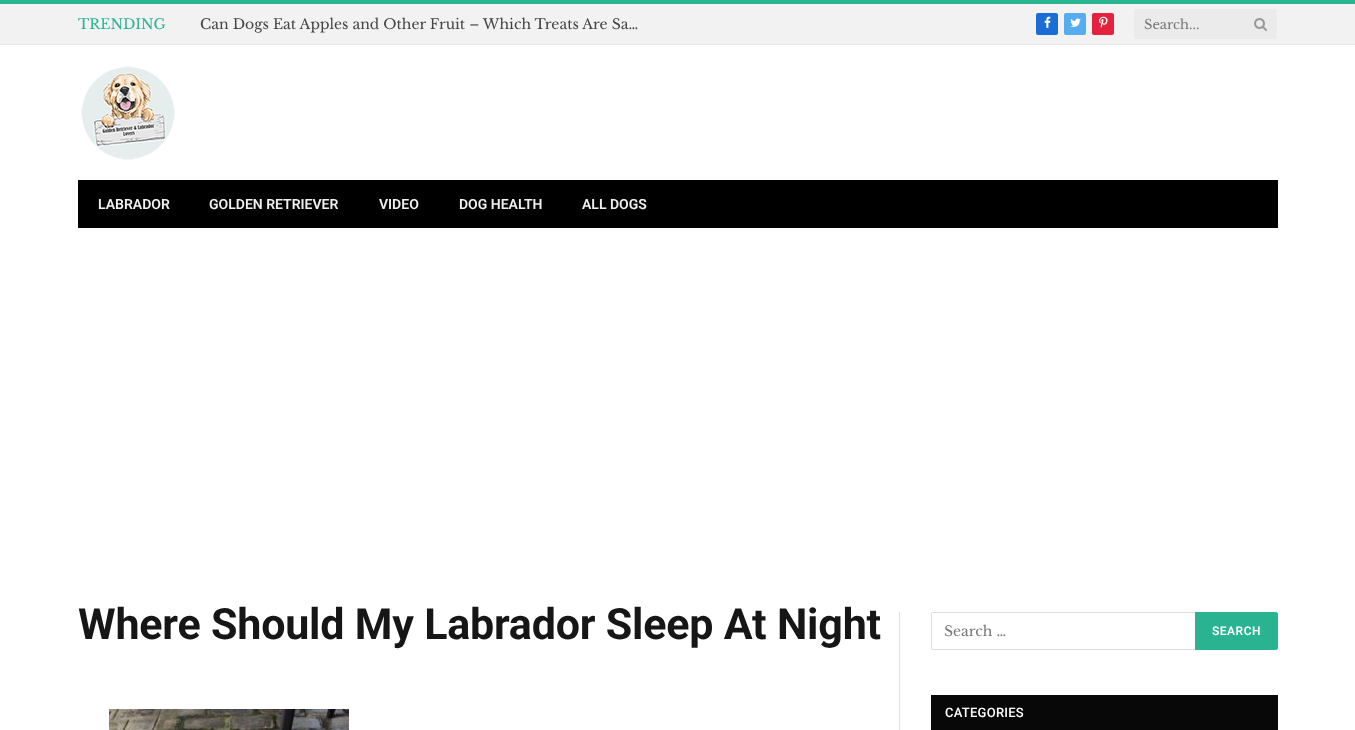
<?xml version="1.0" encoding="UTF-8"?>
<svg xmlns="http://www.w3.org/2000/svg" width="1355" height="730">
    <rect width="100%" height="100%" fill="#FFFFFF"/>
    <rect x="0" y="4" width="1355" height="40" fill="#F2F2F2"/>
    <rect x="0" y="0" width="1355" height="4" fill="#2AB391"/>
    <rect x="0" y="44" width="1355" height="1" fill="#E8E8E8"/>
    <text x="78" y="29" font-family="Libre Baskerville" font-size="14" fill="#2AB391">TRENDING</text>
    <text x="200" y="29" font-family="Libre Baskerville" font-size="14" fill="#444444">Can Dogs Eat Apples and Other Fruit – Which Treats Are Sa…</text>
    <rect x="1036" y="13" width="22" height="22" rx="2" fill="#1A6DD4"/>
    <image x="1044" y="16" width="7" height="12" href="img_01.png"/>
    <rect x="1064" y="13" width="22" height="22" rx="2" fill="#55ACEF"/>
    <image x="1070" y="18" width="11" height="9" href="img_02.png"/>
    <rect x="1092" y="13" width="22" height="22" rx="2" fill="#E4223E"/>
    <image x="1099" y="16" width="9" height="12" href="img_03.png"/>
    <rect x="1134" y="9" width="143" height="30" rx="2" fill="#EBEBEB"/>
    <text x="1144" y="29" font-family="Libre Baskerville" font-size="13" fill="#777777">Search...</text>
    <image x="1254" y="18" width="13" height="13" href="img_04.png"/>
    <image x="81" y="66" width="94" height="94" href="img_05.png"/>
    <rect x="78" y="180" width="1200" height="48" fill="#000000"/>
    <text x="98" y="209" font-family="Roboto" font-size="14" font-weight="600" fill="#F0F0F0">LABRADOR</text>
    <text x="209" y="209" font-family="Roboto" font-size="14" font-weight="600" fill="#F0F0F0">GOLDEN RETRIEVER</text>
    <text x="379" y="209" font-family="Roboto" font-size="14" font-weight="600" fill="#F0F0F0">VIDEO</text>
    <text x="459" y="209" font-family="Roboto" font-size="14" font-weight="600" fill="#F0F0F0">DOG HEALTH</text>
    <text x="582" y="209" font-family="Roboto" font-size="14" font-weight="600" fill="#F0F0F0">ALL DOGS</text>
    <text x="78" y="639" font-family="Roboto" font-size="43" font-weight="700" letter-spacing="-0.2" fill="#161616">Where Should My Labrador Sleep At Night</text>
    <image x="109" y="709" width="240" height="21" href="img_06.png"/>
    <rect x="899" y="612" width="1" height="118" fill="#E2E2E2"/>
    <rect x="931.5" y="612.5" width="265" height="37" rx="1.5" fill="none" stroke="#DDDDDD"/>
    <text x="944" y="636" font-family="Libre Baskerville" font-size="14" fill="#777777">Search …</text>
    <path d="M 1195 612 H 1276 C 1277 612 1278 613 1278 614 V 648 C 1278 649 1277 650 1276 650 H 1195 Z" fill="#2AB391"/>
    <text x="1212" y="635" font-family="Roboto" font-size="12" font-weight="600" letter-spacing="0.5" fill="#FFFFFF">SEARCH</text>
    <rect x="931" y="695" width="347" height="35" fill="#080808"/>
    <text x="945" y="717" font-family="Roboto" font-size="13" font-weight="500" letter-spacing="0.25" fill="#FFFFFF">CATEGORIES</text>
</svg>
